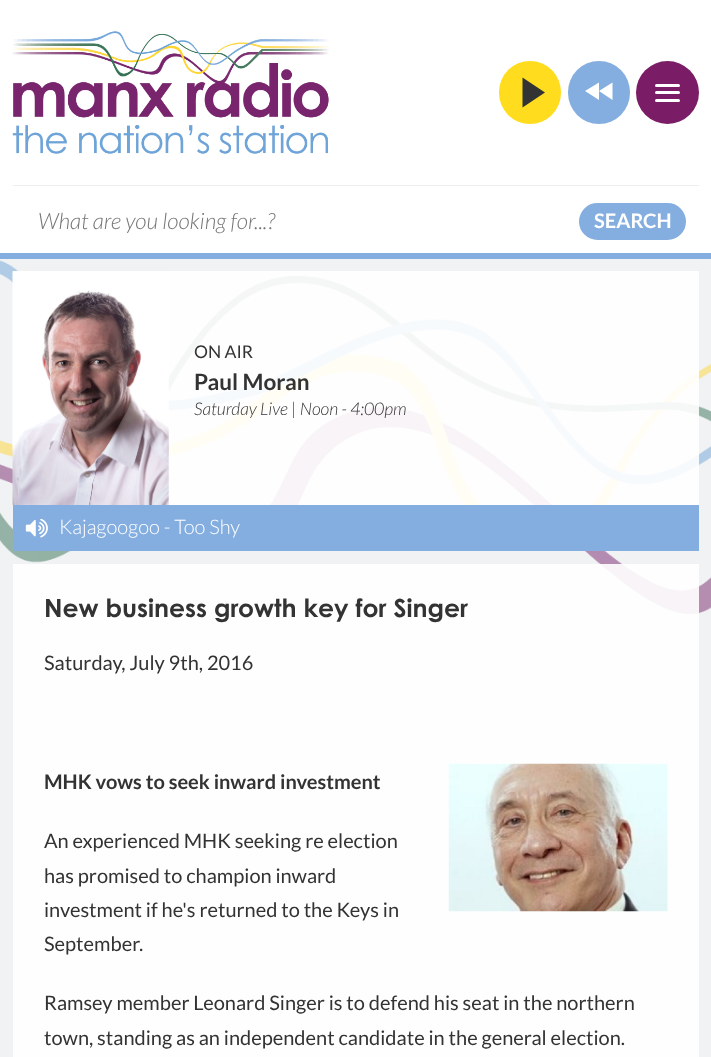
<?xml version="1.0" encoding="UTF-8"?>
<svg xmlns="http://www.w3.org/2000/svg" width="711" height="1057">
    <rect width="100%" height="100%" fill="#FFFFFF"/>
    <rect x="0" y="253" width="711" height="6" fill="#84AEE0"/>
    <image x="12" y="31" width="317" height="123" href="img_01.png"/>
    <rect x="499" y="61" width="62" height="63" rx="31" fill="#FFDC1D"/>
    <path d="M 522.5 107.5 V 77.5 L 545 92.5 Z" fill="#333333"/>
    <rect x="568" y="61" width="62" height="63" rx="31" fill="#84AEE0"/>
    <path d="M 599 82.5 V 100 L 585 91 Z M 612.5 82.5 V 100 L 599 91 Z" fill="#FFFFFF"/>
    <circle cx="667.5" cy="92.5" r="31.5" fill="#7B1D66"/>
    <rect x="655" y="84" width="25" height="3" rx="1.5" fill="#FFFFFF"/>
    <rect x="655" y="91" width="25" height="3" rx="1.5" fill="#FFFFFF"/>
    <rect x="655" y="99" width="25" height="3" rx="1.5" fill="#FFFFFF"/>
    <rect x="13" y="185" width="686" height="1" fill="#EEEEEE"/>
    <text x="38" y="229" font-family="Lato" font-size="22.5" font-weight="300" font-style="italic" fill="#757575">What are you looking for...?</text>
    <rect x="580.5" y="204.5" width="104" height="34" rx="17" fill="#84AEE0" stroke="#84AEE0" stroke-width="3"/>
    <text x="594" y="228" font-family="Lato" font-size="20" font-weight="700" fill="#FFFFFF">SEARCH</text>
    <rect x="0" y="259" width="711" height="798" fill="#F1F2F4"/>
    <image x="0" y="260" width="711" height="354" href="img_02.png"/>
    <rect x="13" y="271" width="686" height="234" fill="#FFFFFF" fill-opacity="0.9"/>
    <image x="12" y="271" width="157" height="234" href="img_03.png"/>
    <text x="194" y="358" font-family="Lato" font-size="17.5" fill="#333333">ON AIR</text>
    <text x="194" y="390" font-family="Lato" font-size="22.5" font-weight="700" fill="#333333">Paul Moran</text>
    <text x="194" y="415" font-family="Lato" font-size="17.5" font-weight="300" font-style="italic" fill="#333333">Saturday Live | Noon - 4:00pm</text>
    <rect x="13" y="505" width="686" height="46" fill="#84AEE0"/>
    <image x="25" y="519" width="23" height="19" href="img_04.png"/>
    <text x="59" y="534" font-family="Lato" font-size="20" font-weight="300" fill="#FFFFFF">Kajagoogoo - Too Shy</text>
    <rect x="13" y="564" width="686" height="493" fill="#FFFFFF" fill-opacity="0.9"/>
    <text x="44" y="617" font-family="Century Gothic" font-size="25" font-weight="700" fill="#333333">New business growth key for Singer</text>
    <text x="44" y="670" font-family="Lato" font-size="20" fill="#333333">Saturday, July 9th, 2016</text>
    <text x="44" y="789" font-family="Lato" font-size="20" font-weight="700" fill="#333333">MHK vows to seek inward investment</text>
    <image x="448" y="763" width="220" height="149" href="img_05.png"/>
    <text font-family="Lato" font-size="20" fill="#333333">
        <tspan x="44" y="848">An experienced MHK seeking re election</tspan>
        <tspan x="44" y="883">has promised to champion inward</tspan>
        <tspan x="44" y="917">investment if he's returned to the Keys in</tspan>
        <tspan x="44" y="951">September.</tspan>
    </text>
    <text font-family="Lato" font-size="20" fill="#333333">
        <tspan x="44" y="1010">Ramsey member Leonard Singer is to defend his seat in the northern</tspan>
        <tspan x="44" y="1045">town, standing as an independent candidate in the general election.</tspan>
    </text>
</svg>
